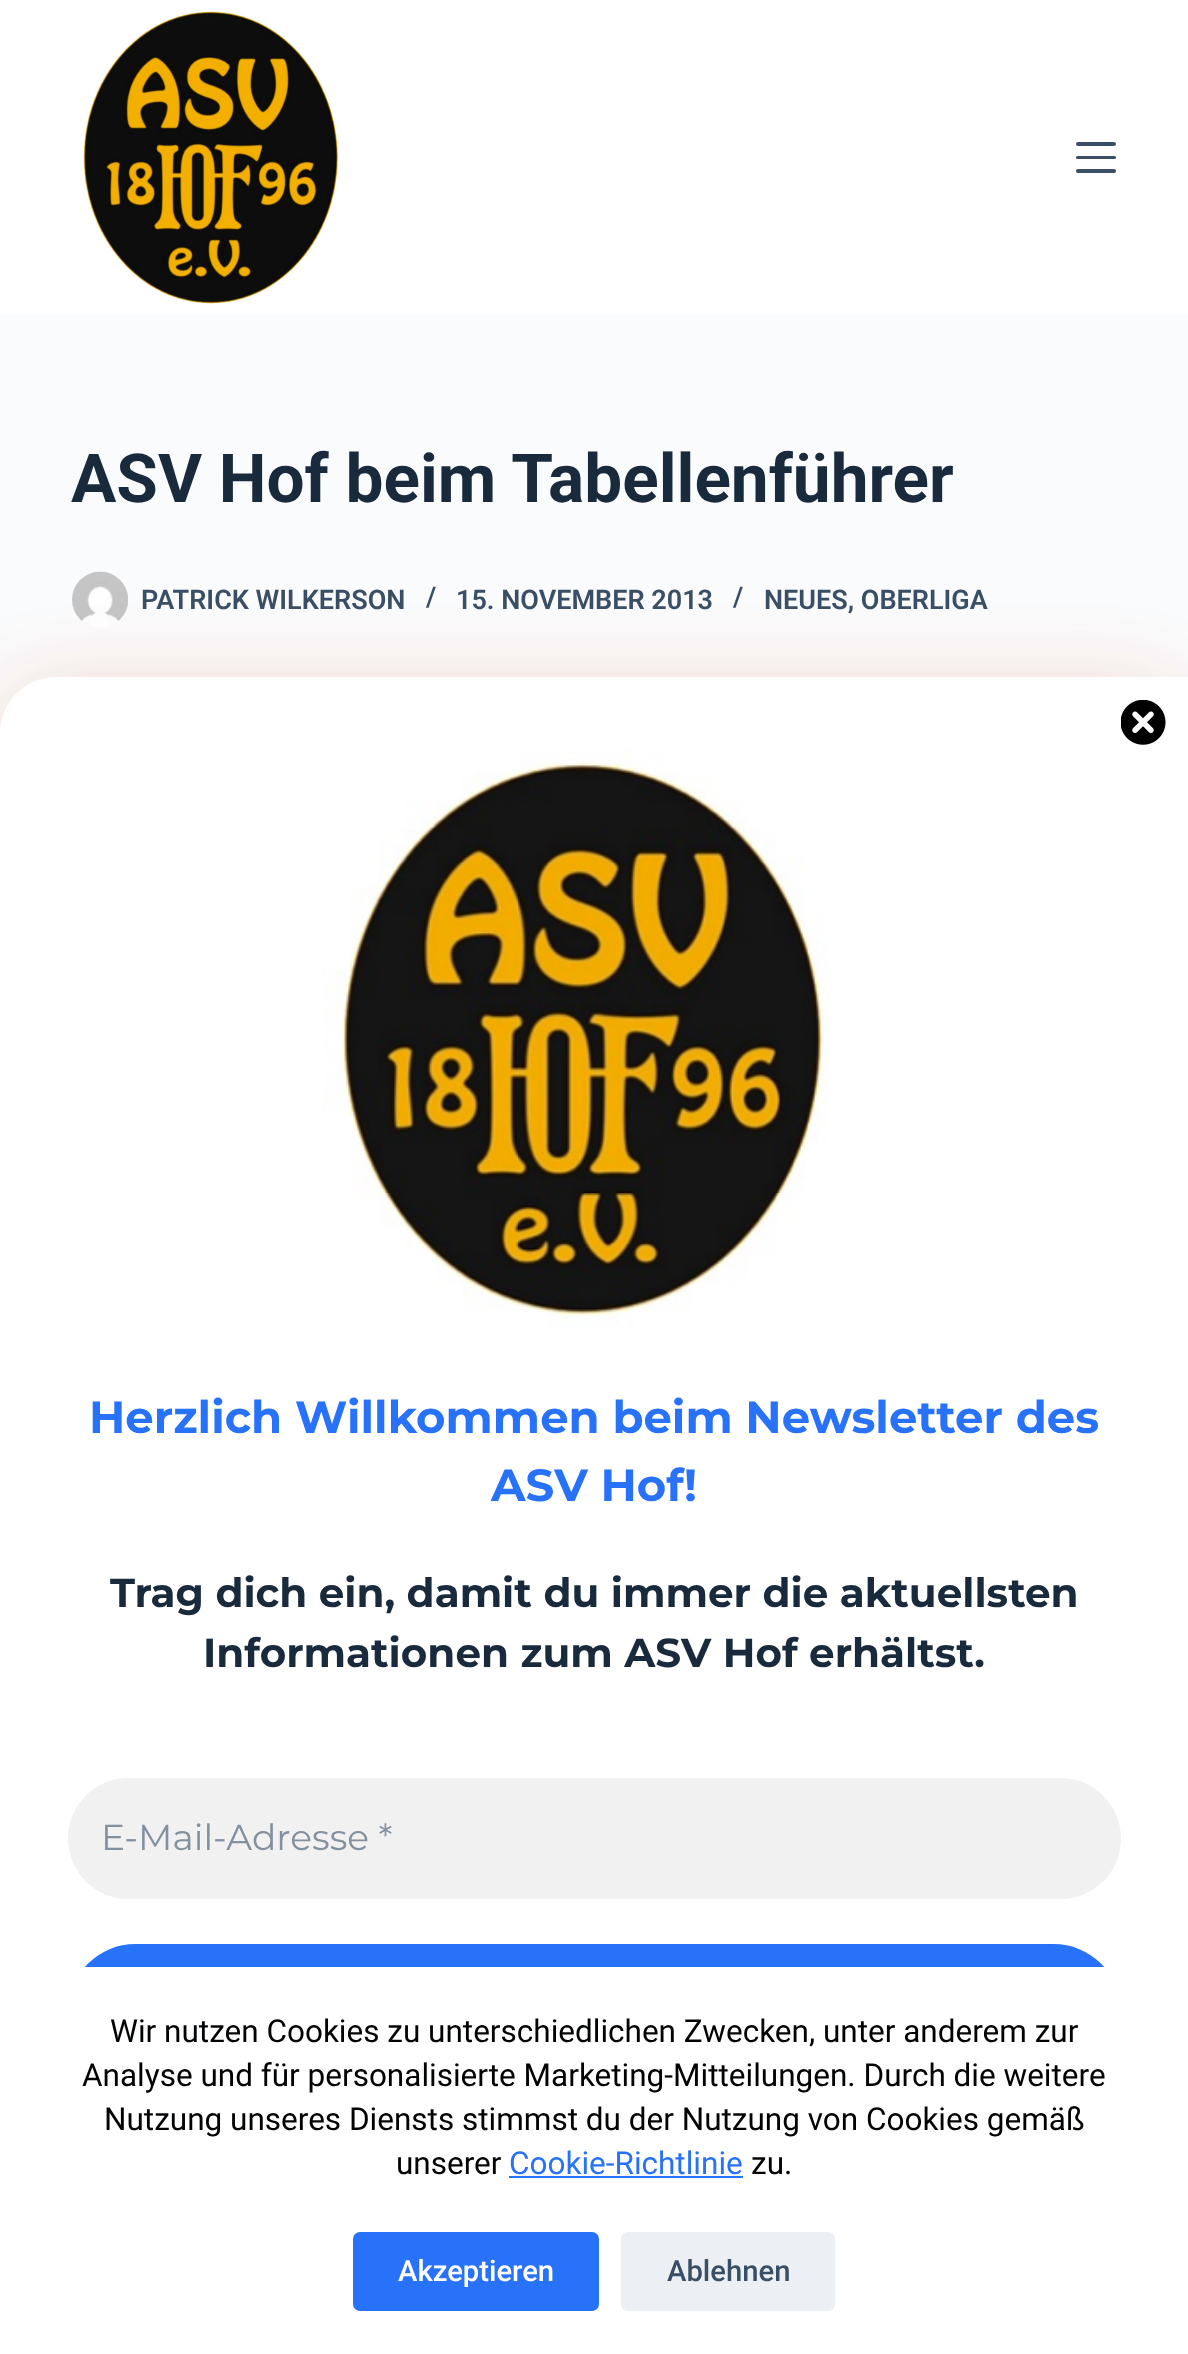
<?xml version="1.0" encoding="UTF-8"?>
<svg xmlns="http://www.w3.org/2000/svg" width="1188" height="2354">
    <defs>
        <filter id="blur1" x="-50%" y="-200%" width="200%" height="500%"><feGaussianBlur stdDeviation="39.5"/></filter>
    </defs>
    <rect width="100%" height="100%" fill="#FAFBFC"/>
    <rect x="0" y="0" width="1188" height="315" fill="#FFFFFF"/>
    <image x="83" y="0" width="256" height="304" href="img_01.png"/>
    <rect x="1076" y="142" width="40" height="4" rx="2" fill="#3A4F66"/>
    <rect x="1076" y="156" width="40" height="3" rx="1.5" fill="#3A4F66"/>
    <rect x="1076" y="169" width="40" height="4" rx="2" fill="#3A4F66"/>
    <text x="71" y="502" font-family="Roboto" font-size="67.5" font-weight="700" fill="#192A3D">ASV Hof beim Tabellenführer</text>
    <image x="72" y="571" width="56" height="56" href="img_02.png"/>
    <text x="141" y="609" font-family="Roboto" font-size="27" font-weight="600" fill="#3A4F66">PATRICK WILKERSON</text>
    <text x="426" y="606" font-family="Roboto" font-size="27" font-weight="600" fill="#3A4F66">/</text>
    <text x="456" y="609" font-family="Roboto" font-size="27" font-weight="600" fill="#3A4F66">15. NOVEMBER 2013</text>
    <text x="733" y="606" font-family="Roboto" font-size="27" font-weight="600" fill="#3A4F66">/</text>
    <text x="764" y="609" font-family="Roboto" font-size="27" font-weight="600" fill="#3A4F66">NEUES, OBERLIGA</text>
    <rect x="0" y="686" width="1188" height="1625" rx="56" fill="#C34102" fill-opacity="0.2" filter="url(#blur1)"/>
    <path d="M 56 677 H 1188 V 2302 H 0 V 733 C 0 702 25 677 56 677 Z" fill="#FFFFFF"/>
    <image x="1121" y="700" width="45" height="45" href="img_03.png"/>
    <image x="323" y="749" width="505" height="580" href="img_04.png"/>
    <text x="89" y="1433" font-family="Montserrat" font-size="45" font-weight="700" fill="#2872FA">Herzlich Willkommen beim Newsletter des</text>
    <text x="491" y="1501" font-family="Montserrat" font-size="45" font-weight="700" fill="#2872FA">ASV Hof!</text>
    <text x="110" y="1607" font-family="Montserrat" font-size="40.5" font-weight="700" fill="#192A3D">Trag dich ein, damit du immer die aktuellsten</text>
    <text x="203" y="1667" font-family="Montserrat" font-size="40.5" font-weight="700" fill="#192A3D">Informationen zum ASV Hof erhältst.</text>
    <rect x="68" y="1778" width="1053" height="121" rx="60.5" fill="#F1F1F1"/>
    <text x="101" y="1850" font-family="Montserrat" font-size="36" fill="#83909E">E-Mail-Adresse *</text>
    <rect x="68" y="1944" width="1053" height="135" rx="67.5" fill="#2872FA"/>
    <rect x="0" y="1967" width="1188" height="387" fill="#FFFFFF"/>
    <text x="110" y="2042" font-family="Roboto" font-size="31.5" fill="#000203">Wir nutzen Cookies zu unterschiedlichen Zwecken, unter anderem zur</text>
    <text x="82" y="2086" font-family="Roboto" font-size="31.5" fill="#000203">Analyse und für personalisierte Marketing-Mitteilungen. Durch die weitere</text>
    <text x="104" y="2130" font-family="Roboto" font-size="31.5" fill="#000203">Nutzung unseres Diensts stimmst du der Nutzung von Cookies gemäß</text>
    <text x="396" y="2174" font-family="Roboto" font-size="31.5" fill="#000203">unserer</text>
    <text x="509" y="2174" font-family="Roboto" font-size="31.5" fill="#2872FA">Cookie-Richtlinie</text>
    <rect x="509" y="2176" width="234" height="2" fill="#2872FA"/>
    <text x="751" y="2174" font-family="Roboto" font-size="31.5" fill="#000203">zu.</text>
    <rect x="353" y="2232" width="246" height="79" rx="7" fill="#2872FA"/>
    <text x="398" y="2281" font-family="Roboto" font-size="29.25" font-weight="500" fill="#FFFFFF">Akzeptieren</text>
    <rect x="621" y="2232" width="214" height="79" rx="7" fill="#ECEFF3"/>
    <text x="667" y="2281" font-family="Roboto" font-size="29.25" font-weight="500" fill="#3A4F66">Ablehnen</text>
</svg>
